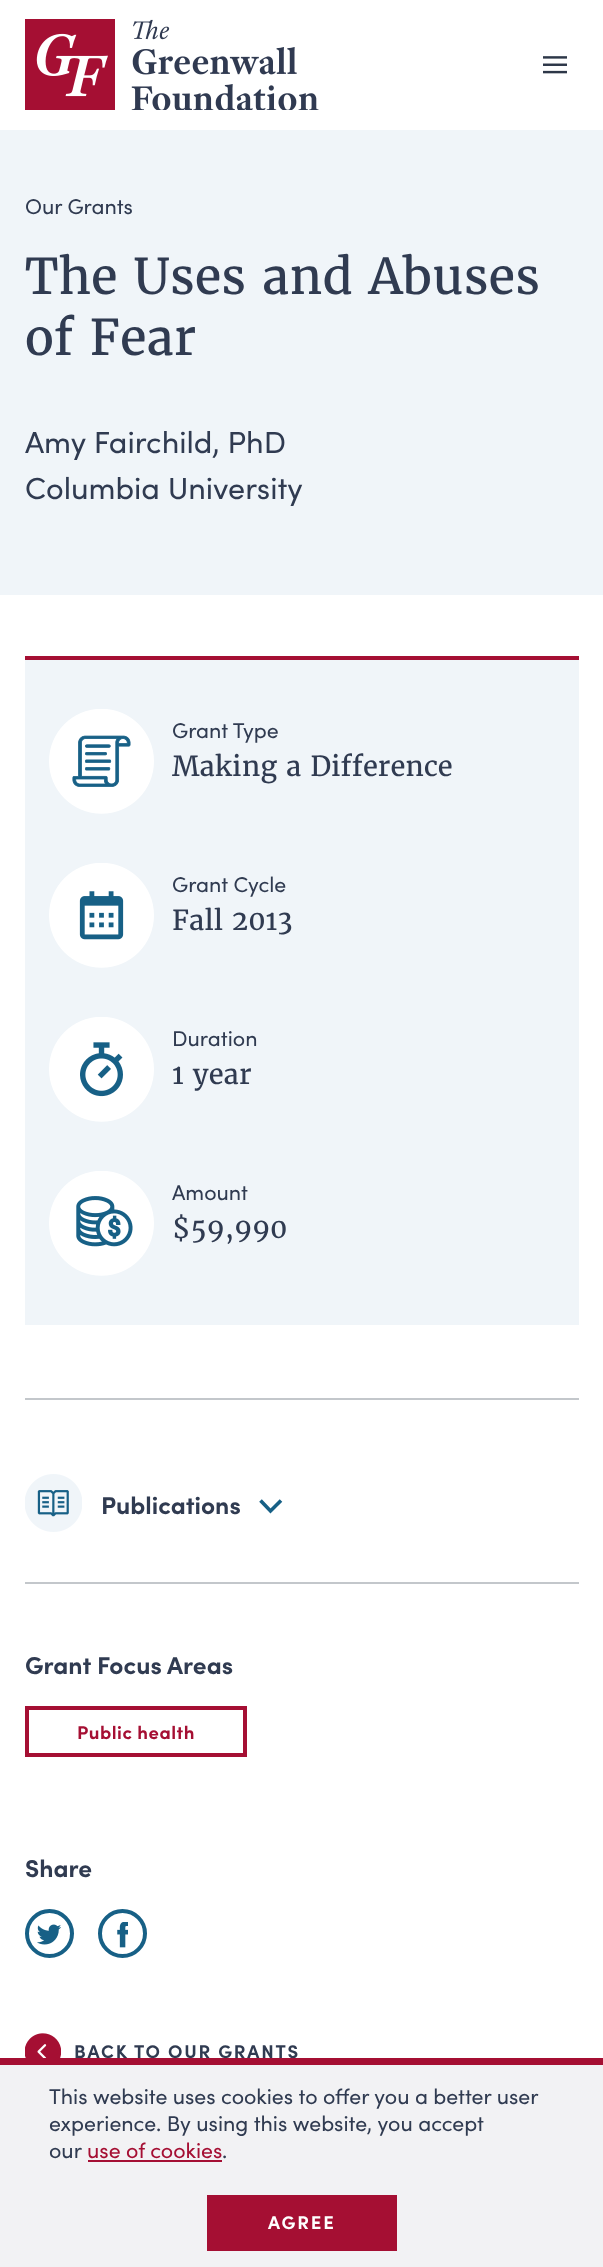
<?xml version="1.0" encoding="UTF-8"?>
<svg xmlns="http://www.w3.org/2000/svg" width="603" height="2267">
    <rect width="100%" height="100%" fill="#FFFFFF"/>
    <image x="25" y="19" width="294" height="91" href="img_01.png"/>
    <image x="543" y="56" width="24" height="18" href="img_02.png"/>
    <rect x="0" y="130" width="603" height="465" fill="#F0F5F9"/>
    <text x="25" y="214" font-family="Sofia" font-size="21.4" fill="#303B51">Our Grants</text>
    <text font-family="Merriweather" font-size="49" fill="#303B51">
        <tspan x="25" y="294">The Uses and Abuses</tspan>
        <tspan x="25" y="355">of Fear</tspan>
    </text>
    <text font-family="Sofia" font-size="30.6" fill="#303B51">
        <tspan x="25" y="453">Amy Fairchild, PhD</tspan>
        <tspan x="25" y="499">Columbia University</tspan>
    </text>
    <rect x="25" y="660" width="554" height="665" fill="#F0F5F9"/>
    <rect x="25" y="656" width="554" height="4" fill="#A50F33"/>
    <image x="49" y="709" width="105" height="105" href="img_03.png"/>
    <text x="172" y="738" font-family="Sofia" font-size="21.4" fill="#303B51">Grant Type</text>
    <text x="172" y="776" font-family="Merriweather" font-size="27.5" fill="#303B51">Making a Difference</text>
    <image x="49" y="863" width="105" height="105" href="img_04.png"/>
    <text x="172" y="892" font-family="Sofia" font-size="21.4" fill="#303B51">Grant Cycle</text>
    <text x="172" y="930" font-family="Merriweather" font-size="27.5" fill="#303B51">Fall 2013</text>
    <image x="49" y="1017" width="105" height="105" href="img_05.png"/>
    <text x="172" y="1046" font-family="Sofia" font-size="21.4" fill="#303B51">Duration</text>
    <text x="172" y="1084" font-family="Merriweather" font-size="27.5" fill="#303B51">1 year</text>
    <image x="49" y="1171" width="105" height="105" href="img_06.png"/>
    <text x="172" y="1200" font-family="Sofia" font-size="21.4" fill="#303B51">Amount</text>
    <text x="172" y="1238" font-family="Merriweather" font-size="27.5" fill="#303B51">$59,990</text>
    <rect x="25" y="1398" width="554" height="2" fill="#C3C7CB"/>
    <rect x="25" y="1582" width="554" height="2" fill="#C3C7CB"/>
    <image x="25" y="1474" width="57" height="58" href="img_07.png"/>
    <text x="101" y="1514" font-family="Sofia" font-size="24.5" font-weight="700" fill="#303B51">Publications</text>
    <path d="M 260.5 1500.5 L 270.5 1511 L 281 1500.5" fill="none" stroke="#176086" stroke-width="3.6"/>
    <text x="25" y="1674" font-family="Sofia" font-size="24.5" font-weight="700" fill="#303B51">Grant Focus Areas</text>
    <rect x="27" y="1708" width="218" height="47" fill="none" stroke="#A50F33" stroke-width="4"/>
    <text x="77" y="1739" font-family="Sofia" font-size="18.4" font-weight="700" letter-spacing="0.5" fill="#A50F33">Public health</text>
    <text x="25" y="1877" font-family="Sofia" font-size="24.5" font-weight="700" fill="#303B51">Share</text>
    <circle cx="49.5" cy="1933.5" r="22.5" fill="none" stroke="#176086" stroke-width="4"/>
    <image x="37" y="1924" width="24" height="21" href="img_08.png"/>
    <circle cx="122.5" cy="1933.5" r="22.5" fill="none" stroke="#176086" stroke-width="4"/>
    <image x="117" y="1922" width="11" height="26" href="img_09.png"/>
    <image x="25" y="2033" width="36" height="25" href="img_10.png"/>
    <text x="74" y="2058" font-family="Sofia" font-size="18.4" font-weight="700" letter-spacing="1.8" fill="#303B51">BACK TO OUR GRANTS</text>
    <rect x="0" y="2065" width="603" height="202" fill="#F2F2F4"/>
    <rect x="0" y="2058" width="603" height="7" fill="#A50F33"/>
    <text font-family="Sofia" font-size="21.4" fill="#303B51">
        <tspan x="49" y="2104">This website uses cookies to offer you a better user</tspan>
        <tspan x="49" y="2131">experience. By using this website, you accept</tspan>
        <tspan x="49" y="2158">our</tspan>
    </text>
    <text x="87" y="2158" font-family="Sofia" font-size="21.4" fill="#A50F33">use of cookies</text>
    <rect x="88" y="2160" width="134" height="2" fill="#A50F33"/>
    <text x="222" y="2158" font-family="Sofia" font-size="21.4" fill="#303B51">.</text>
    <rect x="207" y="2195" width="190" height="56" fill="#A50F33"/>
    <text x="268" y="2229" font-family="Sofia" font-size="18.4" font-weight="700" letter-spacing="1.8" fill="#FFFFFF">AGREE</text>
</svg>
